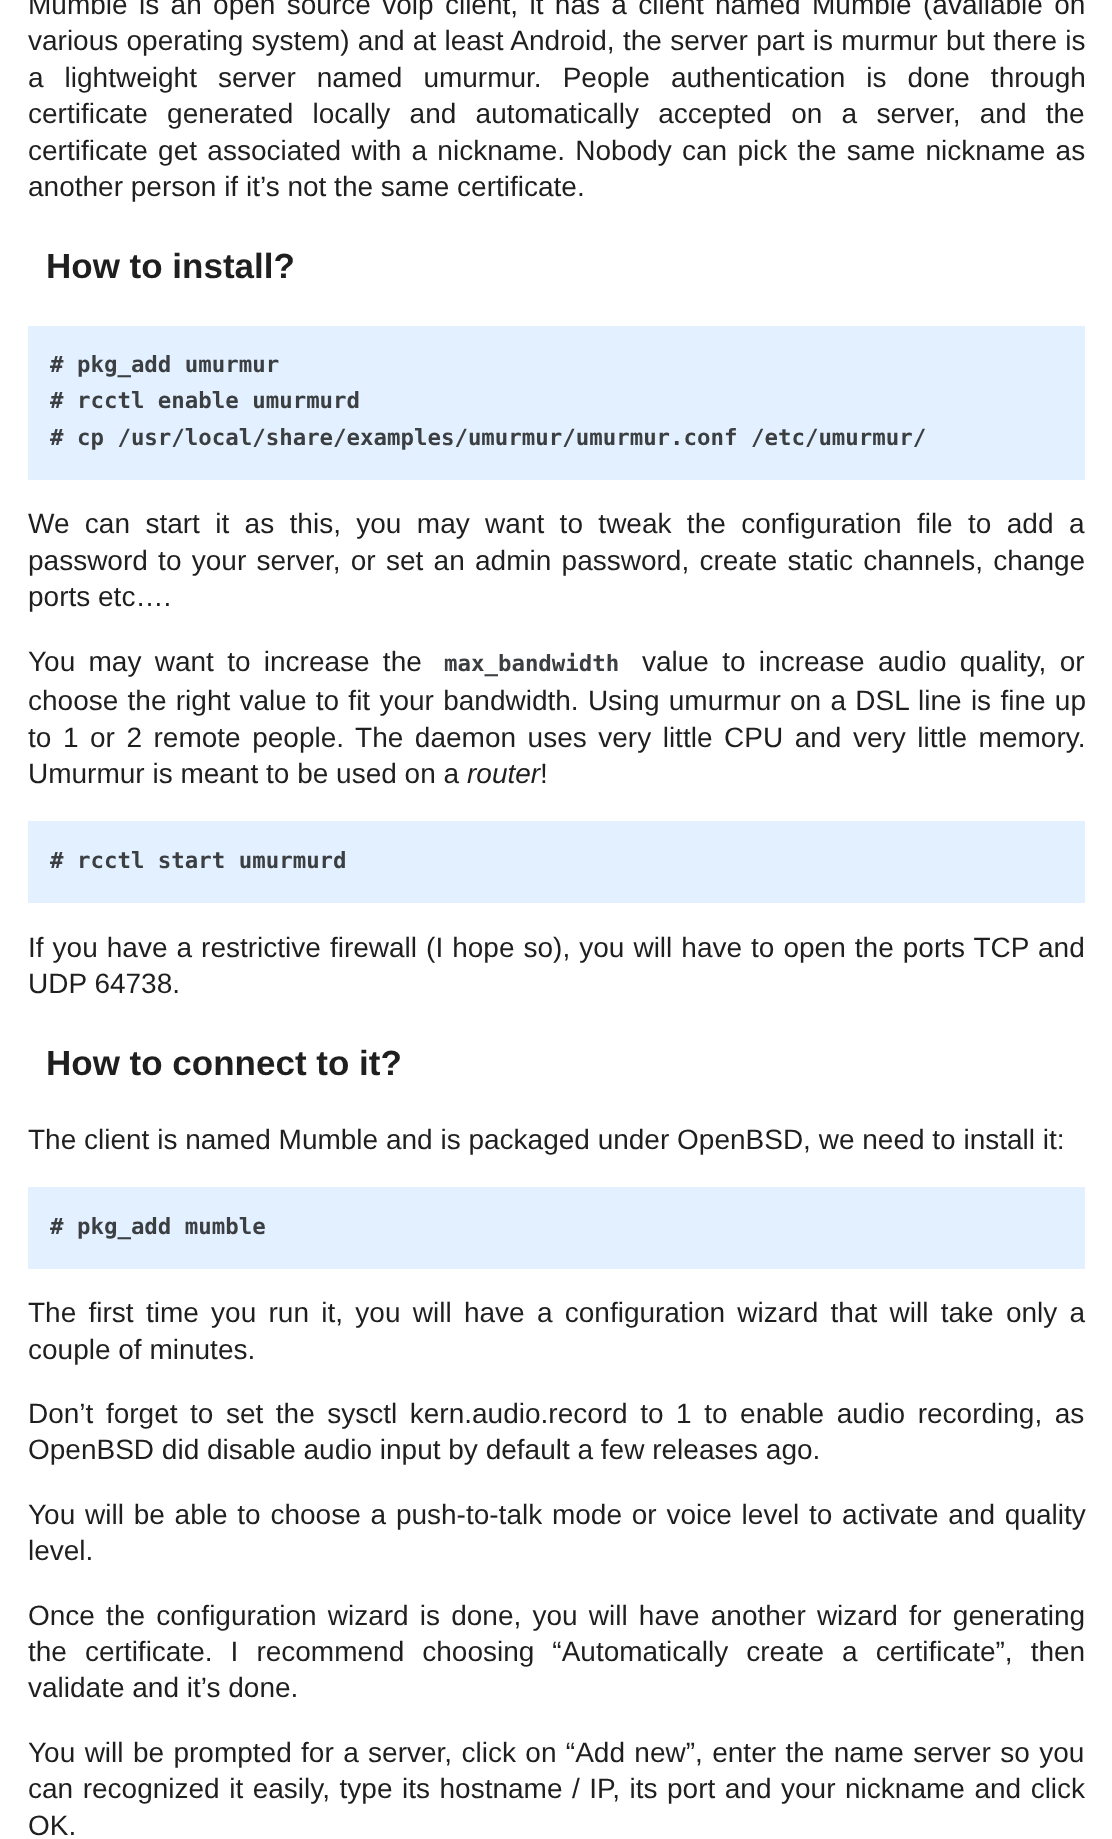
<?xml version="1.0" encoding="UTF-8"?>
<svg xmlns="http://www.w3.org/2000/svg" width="1112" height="1839">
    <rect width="100%" height="100%" fill="#FFFFFF"/>
    <text font-family="Liberation Sans" font-size="28" fill="#1F1F1F">
        <tspan x="28" y="14" word-spacing="3.6">Mumble is an open source voip client, it has a client named Mumble (available on</tspan>
        <tspan x="28" y="50" word-spacing="0.5">various operating system) and at least Android, the server part is murmur but there is</tspan>
        <tspan x="28" y="87" word-spacing="13.25">a lightweight server named umurmur. People authentication is done through</tspan>
        <tspan x="28" y="123" word-spacing="11.5">certificate generated locally and automatically accepted on a server, and the</tspan>
        <tspan x="28" y="160" word-spacing="2.5">certificate get associated with a nickname. Nobody can pick the same nickname as</tspan>
        <tspan x="28" y="196">another person if it’s not the same certificate.</tspan>
    </text>
    <text x="46" y="278" font-family="Liberation Sans" font-size="35" font-weight="700" fill="#1F1F1F">How to install?</text>
    <rect x="28" y="326" width="1057" height="154" fill="#E3F0FF"/>
    <text font-family="DejaVu Sans Mono" font-size="22.4" font-weight="700" fill="#3C3F42">
        <tspan x="50" y="372"># pkg_add umurmur</tspan>
        <tspan x="50" y="408"># rcctl enable umurmurd</tspan>
        <tspan x="50" y="445"># cp /usr/local/share/examples/umurmur/umurmur.conf /etc/umurmur/</tspan>
    </text>
    <text font-family="Liberation Sans" font-size="28" fill="#1F1F1F">
        <tspan x="28" y="533" word-spacing="7.6">We can start it as this, you may want to tweak the configuration file to add a</tspan>
        <tspan x="28" y="570" word-spacing="2.5">password to your server, or set an admin password, create static channels, change</tspan>
        <tspan x="28" y="606">ports etc….</tspan>
    </text>
    <text x="28" y="671" word-spacing="5.5" font-family="Liberation Sans" font-size="28" fill="#1F1F1F">You may want to increase the</text>
    <text x="444" y="671" font-family="DejaVu Sans Mono" font-size="22.4" font-weight="700" fill="#3C3F42">max_bandwidth</text>
    <text x="642" y="671" word-spacing="5.5" font-family="Liberation Sans" font-size="28" fill="#1F1F1F">value to increase audio quality, or</text>
    <text font-family="Liberation Sans" font-size="28" fill="#1F1F1F">
        <tspan x="28" y="710" word-spacing="1.5">choose the right value to fit your bandwidth. Using umurmur on a DSL line is fine up</tspan>
        <tspan x="28" y="747" word-spacing="3.75">to 1 or 2 remote people. The daemon uses very little CPU and very little memory.</tspan>
        <tspan x="28" y="783">Umurmur is meant to be used on a</tspan>
    </text>
    <text x="467" y="783" font-family="Liberation Sans" font-size="28" font-style="italic" fill="#1F1F1F">router</text>
    <text x="540" y="783" font-family="Liberation Sans" font-size="28" fill="#1F1F1F">!</text>
    <rect x="28" y="821" width="1057" height="82" fill="#E3F0FF"/>
    <text x="50" y="868" font-family="DejaVu Sans Mono" font-size="22.4" font-weight="700" fill="#3C3F42"># rcctl start umurmurd</text>
    <text font-family="Liberation Sans" font-size="28" fill="#1F1F1F">
        <tspan x="28" y="957" word-spacing="1.25">If you have a restrictive firewall (I hope so), you will have to open the ports TCP and</tspan>
        <tspan x="28" y="993">UDP 64738.</tspan>
    </text>
    <text x="46" y="1075" font-family="Liberation Sans" font-size="35" font-weight="700" fill="#1F1F1F">How to connect to it?</text>
    <text x="28" y="1149" font-family="Liberation Sans" font-size="28" fill="#1F1F1F">The client is named Mumble and is packaged under OpenBSD, we need to install it:</text>
    <rect x="28" y="1187" width="1057" height="82" fill="#E3F0FF"/>
    <text x="50" y="1234" font-family="DejaVu Sans Mono" font-size="22.4" font-weight="700" fill="#3C3F42"># pkg_add mumble</text>
    <text font-family="Liberation Sans" font-size="28" fill="#1F1F1F">
        <tspan x="28" y="1322" word-spacing="4.5">The first time you run it, you will have a configuration wizard that will take only a</tspan>
        <tspan x="28" y="1359">couple of minutes.</tspan>
    </text>
    <text font-family="Liberation Sans" font-size="28" fill="#1F1F1F">
        <tspan x="28" y="1423" word-spacing="4.75">Don’t forget to set the sysctl kern.audio.record to 1 to enable audio recording, as</tspan>
        <tspan x="28" y="1459">OpenBSD did disable audio input by default a few releases ago.</tspan>
    </text>
    <text font-family="Liberation Sans" font-size="28" fill="#1F1F1F">
        <tspan x="28" y="1524" word-spacing="2">You will be able to choose a push-to-talk mode or voice level to activate and quality</tspan>
        <tspan x="28" y="1560">level.</tspan>
    </text>
    <text font-family="Liberation Sans" font-size="28" fill="#1F1F1F">
        <tspan x="28" y="1625" word-spacing="3.4">Once the configuration wizard is done, you will have another wizard for generating</tspan>
        <tspan x="28" y="1661" word-spacing="10.25">the certificate. I recommend choosing “Automatically create a certificate”, then</tspan>
        <tspan x="28" y="1697">validate and it’s done.</tspan>
    </text>
    <text font-family="Liberation Sans" font-size="28" fill="#1F1F1F">
        <tspan x="28" y="1762" word-spacing="1.6">You will be prompted for a server, click on “Add new”, enter the name server so you</tspan>
        <tspan x="28" y="1798" word-spacing="1.75">can recognized it easily, type its hostname / IP, its port and your nickname and click</tspan>
        <tspan x="28" y="1835">OK.</tspan>
    </text>
</svg>
